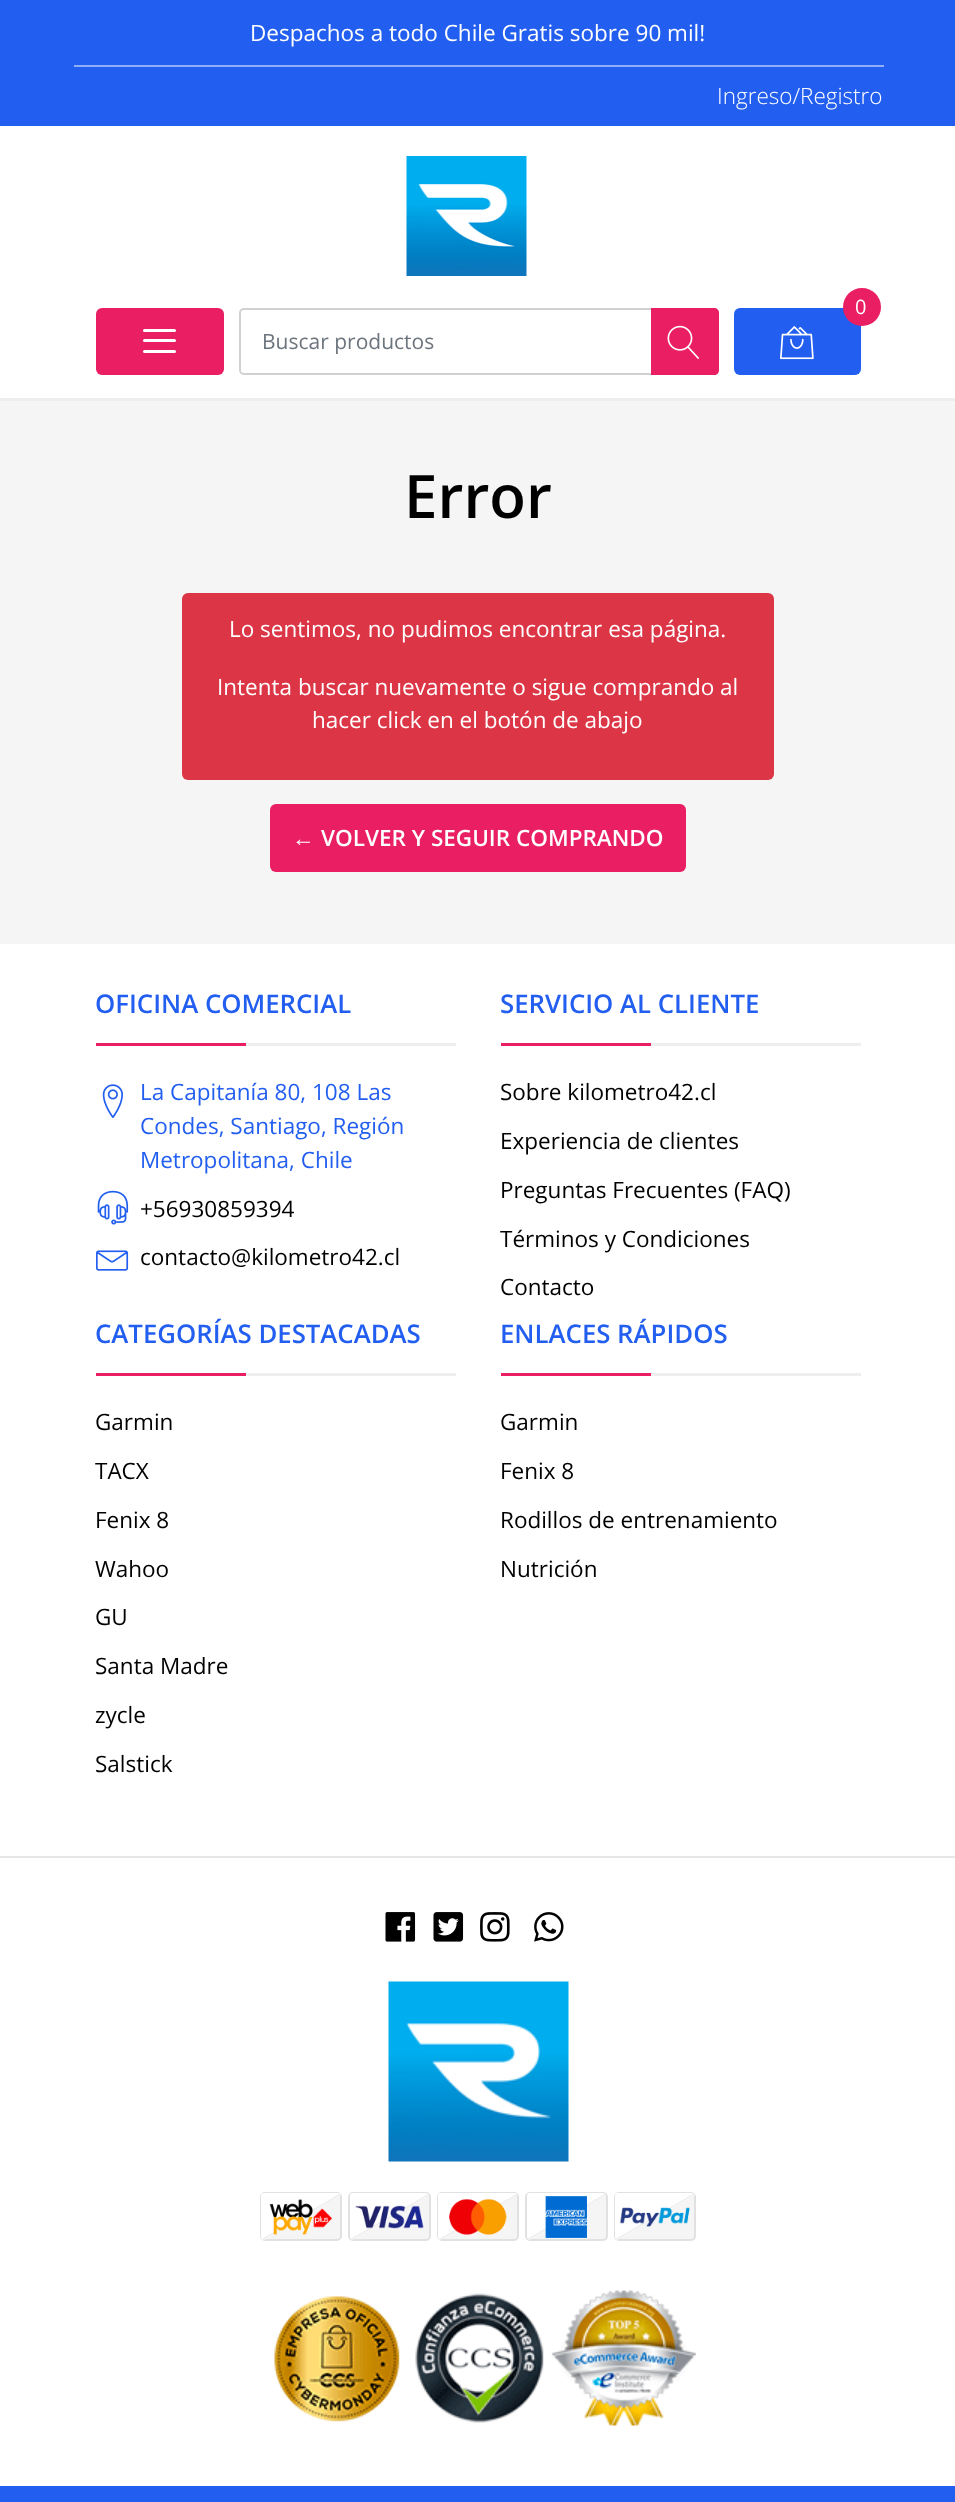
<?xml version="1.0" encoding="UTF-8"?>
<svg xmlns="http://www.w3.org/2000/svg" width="955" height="2502">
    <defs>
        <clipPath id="clip1"><rect x="261" y="2193" width="80" height="47" rx="3"/></clipPath>
        <clipPath id="clip2"><rect x="350" y="2193" width="79" height="47" rx="3"/></clipPath>
        <clipPath id="clip3"><rect x="438" y="2193" width="80" height="47" rx="3"/></clipPath>
        <clipPath id="clip4"><rect x="527" y="2193" width="79" height="47" rx="3"/></clipPath>
        <clipPath id="clip5"><rect x="615" y="2193" width="80" height="47" rx="3"/></clipPath>
    </defs>
    <rect width="100%" height="100%" fill="#FFFFFF"/>
    <rect x="0" y="0" width="955" height="126" fill="#225EEF"/>
    <rect x="74" y="65" width="810" height="2" fill="#91AFF7"/>
    <text x="250" y="41" font-family="Open Sans" font-size="22.5" fill="#FFFFFF">Despachos a todo Chile Gratis sobre 90 mil!</text>
    <text x="717" y="104" font-family="Open Sans" font-size="22.5" font-weight="300" fill="#FFFFFF">Ingreso/Registro</text>
    <image x="406" y="156" width="121" height="120" href="img_01.png"/>
    <rect x="96" y="308" width="128" height="67" rx="6" fill="#E91E63"/>
    <rect x="143" y="329" width="33" height="3" rx="1.5" fill="#FFFFFF"/>
    <rect x="143" y="339" width="33" height="3" rx="1.5" fill="#FFFFFF"/>
    <rect x="143" y="350" width="33" height="3" rx="1.5" fill="#FFFFFF"/>
    <rect x="240" y="309" width="478" height="65" rx="4" fill="none" stroke="#D1D1D1" stroke-width="2"/>
    <text x="262" y="349" font-family="Open Sans" font-size="21" fill="#6C757D">Buscar productos</text>
    <path d="M 651 308 H 714 C 717 308 719 310 719 313 V 370 C 719 373 717 375 714 375 H 651 Z" fill="#E91E63"/>
    <image x="667" y="325" width="32" height="34" href="img_02.png"/>
    <rect x="734" y="308" width="127" height="67" rx="6" fill="#225EEF"/>
    <circle cx="862" cy="307" r="19" fill="#E91E63"/>
    <text x="855" y="314" font-family="Open Sans" font-size="20" fill="#FFFFFF">0</text>
    <image x="780" y="326" width="34" height="34" href="img_03.png"/>
    <rect x="0" y="398" width="955" height="3" fill="#EEEEEE"/>
    <rect x="0" y="401" width="955" height="543" fill="#F5F5F5"/>
    <text x="404" y="518" font-family="Open Sans" font-size="60" font-weight="600" fill="#000000">Error</text>
    <rect x="182" y="593" width="592" height="187" rx="6" fill="#DC3545"/>
    <text x="229" y="637" font-family="Open Sans" font-size="22.5" fill="#FFFFFF">Lo sentimos, no pudimos encontrar esa página.</text>
    <text x="217" y="695" font-family="Open Sans" font-size="22.5" fill="#FFFFFF">Intenta buscar nuevamente o sigue comprando al</text>
    <text x="312" y="728" font-family="Open Sans" font-size="22.5" fill="#FFFFFF">hacer click en el botón de abajo</text>
    <rect x="270" y="804" width="416" height="68" rx="6" fill="#E91E63"/>
    <text x="292" y="846" font-family="Liberation Serif" font-size="22.5" font-weight="700" fill="#FFFFFF">←</text>
    <text x="321" y="846" font-family="Open Sans" font-size="22.5" font-weight="600" fill="#FFFFFF">VOLVER Y SEGUIR COMPRANDO</text>
    <rect x="246" y="1043" width="210" height="3" fill="#EEEEEE"/>
    <text x="95" y="1013" font-family="Open Sans" font-size="25.75" font-weight="600" fill="#225EEF">OFICINA COMERCIAL</text>
    <rect x="96" y="1043" width="150" height="3" fill="#E91E63"/>
    <image x="102" y="1084" width="21" height="34" href="img_04.png"/>
    <text font-family="Open Sans" font-size="22.5" fill="#225EEF">
        <tspan x="140" y="1100">La Capitanía 80, 108 Las</tspan>
        <tspan x="140" y="1134">Condes, Santiago, Región</tspan>
        <tspan x="140" y="1168">Metropolitana, Chile</tspan>
    </text>
    <image x="97" y="1190" width="32" height="35" href="img_05.png"/>
    <text x="140" y="1217" font-family="Open Sans" font-size="22.5" fill="#000000">+56930859394</text>
    <image x="96" y="1250" width="33" height="21" href="img_06.png"/>
    <text x="140" y="1265" font-family="Open Sans" font-size="22.5" fill="#000000">contacto@kilometro42.cl</text>
    <rect x="651" y="1043" width="210" height="3" fill="#EEEEEE"/>
    <text x="500" y="1013" font-family="Open Sans" font-size="25.75" font-weight="600" fill="#225EEF">SERVICIO AL CLIENTE</text>
    <rect x="501" y="1043" width="150" height="3" fill="#E91E63"/>
    <text x="500" y="1100" font-family="Open Sans" font-size="22.5" fill="#000000">Sobre kilometro42.cl</text>
    <text x="500" y="1149" font-family="Open Sans" font-size="22.5" fill="#000000">Experiencia de clientes</text>
    <text x="500" y="1198" font-family="Open Sans" font-size="22.5" fill="#000000">Preguntas Frecuentes (FAQ)</text>
    <text x="500" y="1247" font-family="Open Sans" font-size="22.5" fill="#000000">Términos y Condiciones</text>
    <text x="500" y="1295" font-family="Open Sans" font-size="22.5" fill="#000000">Contacto</text>
    <rect x="246" y="1373" width="210" height="3" fill="#EEEEEE"/>
    <text x="95" y="1343" font-family="Open Sans" font-size="25.75" font-weight="600" fill="#225EEF">CATEGORÍAS DESTACADAS</text>
    <rect x="96" y="1373" width="150" height="3" fill="#E91E63"/>
    <text x="95" y="1430" font-family="Open Sans" font-size="22.5" fill="#000000">Garmin</text>
    <text x="95" y="1479" font-family="Open Sans" font-size="22.5" fill="#000000">TACX</text>
    <text x="95" y="1528" font-family="Open Sans" font-size="22.5" fill="#000000">Fenix 8</text>
    <text x="95" y="1577" font-family="Open Sans" font-size="22.5" fill="#000000">Wahoo</text>
    <text x="95" y="1625" font-family="Open Sans" font-size="22.5" fill="#000000">GU</text>
    <text x="95" y="1674" font-family="Open Sans" font-size="22.5" fill="#000000">Santa Madre</text>
    <text x="95" y="1723" font-family="Open Sans" font-size="22.5" fill="#000000">zycle</text>
    <text x="95" y="1772" font-family="Open Sans" font-size="22.5" fill="#000000">Salstick</text>
    <rect x="651" y="1373" width="210" height="3" fill="#EEEEEE"/>
    <text x="500" y="1343" font-family="Open Sans" font-size="25.75" font-weight="600" fill="#225EEF">ENLACES RÁPIDOS</text>
    <rect x="501" y="1373" width="150" height="3" fill="#E91E63"/>
    <text x="500" y="1430" font-family="Open Sans" font-size="22.5" fill="#000000">Garmin</text>
    <text x="500" y="1479" font-family="Open Sans" font-size="22.5" fill="#000000">Fenix 8</text>
    <text x="500" y="1528" font-family="Open Sans" font-size="22.5" fill="#000000">Rodillos de entrenamiento</text>
    <text x="500" y="1577" font-family="Open Sans" font-size="22.5" fill="#000000">Nutrición</text>
    <rect x="0" y="1856" width="955" height="2" fill="#E6E6E6"/>
    <image x="385" y="1912" width="31" height="30" href="img_07.png"/>
    <image x="433" y="1912" width="31" height="30" href="img_08.png"/>
    <image x="480" y="1912" width="30" height="30" href="img_09.png"/>
    <image x="534" y="1912" width="30" height="30" href="img_10.png"/>
    <image x="388" y="1981" width="181" height="181" href="img_11.png"/>
    <rect x="261" y="2193" width="80" height="47" rx="4" fill="#F5F5F5" stroke="#E1E1E1" stroke-width="2"/>
    <path d="M 264 2193 H 338 C 339 2193 341 2194 341 2195 L 264 2240 C 262 2240 261 2238 261 2237 V 2196 C 261 2194 262 2193 264 2193 Z" fill="#FFFFFF"/>
    <g clip-path="url(#clip1)">
        <path d="M 288.5 2053 L 362.5 2181.5 L 234 2256 L 160 2127.5 Z" fill="none" stroke="#EEEEEE" stroke-width="1.5"/>
    </g>
    <image x="269" y="2199" width="63" height="36" href="img_12.png"/>
    <rect x="349" y="2193" width="81" height="47" rx="4" fill="#F5F5F5" stroke="#E1E1E1" stroke-width="2"/>
    <path d="M 353 2193 H 426 C 427 2193 429 2194 429 2195 L 352 2240 C 351 2239 350 2238 350 2237 V 2196 C 350 2194 351 2193 353 2193 Z" fill="#FFFFFF"/>
    <g clip-path="url(#clip2)">
        <path d="M 377 2053 L 451 2181.5 L 322.5 2256 L 248 2127.5 Z" fill="none" stroke="#EEEEEE" stroke-width="1.5"/>
    </g>
    <image x="355" y="2205" width="69" height="24" href="img_13.png"/>
    <rect x="438" y="2193" width="80" height="47" rx="4" fill="#F5F5F5" stroke="#E1E1E1" stroke-width="2"/>
    <path d="M 441 2193 H 515 C 516 2193 517 2194 518 2195 L 440 2240 C 439 2240 438 2238 438 2237 V 2196 C 438 2194 439 2193 441 2193 Z" fill="#FFFFFF"/>
    <g clip-path="url(#clip3)">
        <path d="M 465 2053 L 539.5 2181.5 L 411 2256 L 336.5 2127.5 Z" fill="none" stroke="#EEEEEE" stroke-width="1.5"/>
    </g>
    <image x="449" y="2199" width="58" height="36" href="img_14.png"/>
    <rect x="526" y="2193" width="81" height="47" rx="4" fill="#F5F5F5" stroke="#E1E1E1" stroke-width="2"/>
    <path d="M 530 2193 H 603 C 604 2193 606 2194 606 2195 L 529 2240 C 528 2239 527 2238 527 2237 V 2196 C 527 2194 528 2193 530 2193 Z" fill="#FFFFFF"/>
    <g clip-path="url(#clip4)">
        <path d="M 553.5 2053 L 628 2181.5 L 499 2256 L 425 2127.5 Z" fill="none" stroke="#EEEEEE" stroke-width="1.5"/>
    </g>
    <image x="545" y="2196" width="42" height="42" href="img_15.png"/>
    <rect x="615" y="2193" width="80" height="47" rx="4" fill="#F5F5F5" stroke="#E1E1E1" stroke-width="2"/>
    <path d="M 618 2193 H 692 C 693 2193 694 2194 695 2195 L 617 2240 C 616 2239 615 2238 615 2237 V 2196 C 615 2194 616 2193 618 2193 Z" fill="#FFFFFF"/>
    <g clip-path="url(#clip5)">
        <path d="M 642 2053 L 716 2181.5 L 587.5 2256 L 513.5 2127.5 Z" fill="none" stroke="#EEEEEE" stroke-width="1.5"/>
    </g>
    <image x="619" y="2207" width="71" height="20" href="img_16.png"/>
    <image x="274" y="2290" width="422" height="136" href="img_17.png"/>
    <rect x="0" y="2486" width="955" height="16" fill="#225EEF"/>
</svg>
